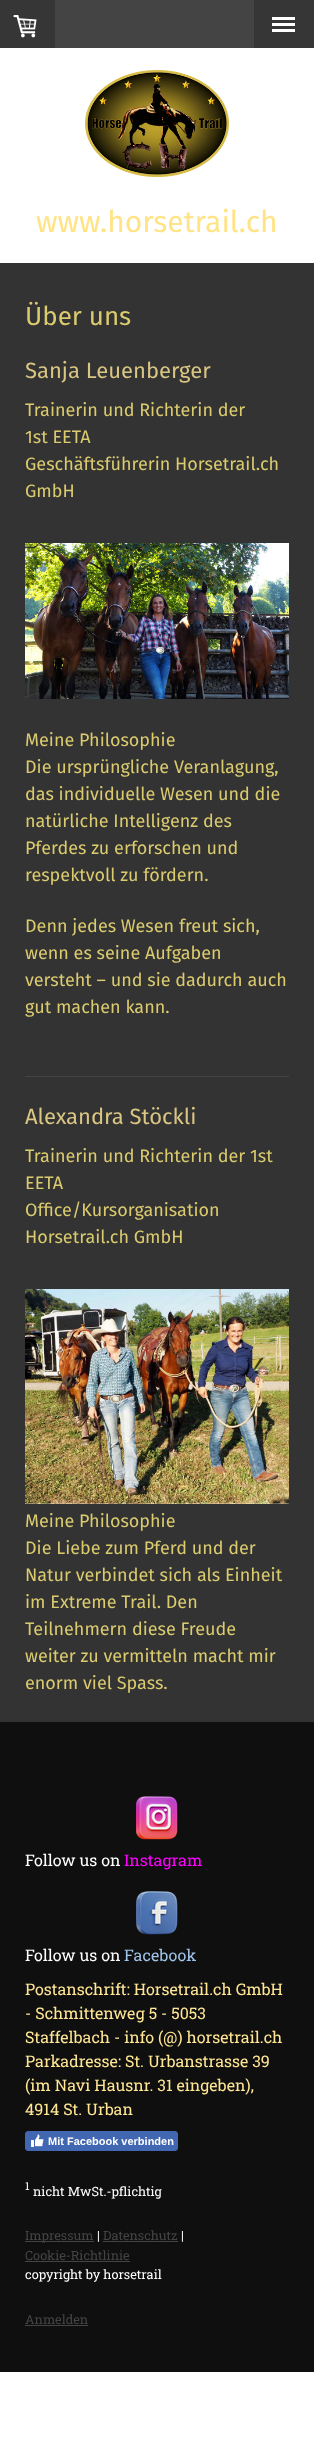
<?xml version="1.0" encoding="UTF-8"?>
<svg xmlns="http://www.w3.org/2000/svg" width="314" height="2437">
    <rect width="100%" height="100%" fill="#FFFFFF"/>
    <rect x="0" y="0" width="254" height="48" fill="#444444"/>
    <path d="M 1 0 H 54 C 54.5 0 55 0.5 55 1 V 48 H 0 V 1 C 0 0.5 0.5 0 1 0 Z" fill="#363636"/>
    <image x="13" y="15" width="24" height="23" href="img_01.png"/>
    <rect x="254" y="0" width="60" height="48" fill="#363636"/>
    <rect x="272" y="23" width="23" height="3" fill="#FFFFFF"/>
    <rect x="272" y="17" width="23" height="3" fill="#FFFFFF"/>
    <rect x="272" y="29" width="23" height="3" fill="#FFFFFF"/>
    <image x="85" y="70" width="144" height="107" href="img_02.png"/>
    <text x="36" y="232" font-family="Fira Sans" font-size="30" fill="#FFE384">www.horsetrail.ch</text>
    <rect x="0" y="263" width="314" height="1459" fill="#333333"/>
    <text x="25" y="325" font-family="Fira Sans" font-size="26" fill="#DBCB6F">Über uns</text>
    <text x="25" y="378" font-family="Fira Sans" font-size="22" fill="#DAC683">Sanja Leuenberger</text>
    <text font-family="Fira Sans" font-size="18" fill="#DBCB6F">
        <tspan x="25" y="416">Trainerin und Richterin der</tspan>
        <tspan x="25" y="443">1st EETA</tspan>
        <tspan x="25" y="470">Geschäftsführerin Horsetrail.ch</tspan>
        <tspan x="25" y="497">GmbH</tspan>
    </text>
    <image x="25" y="543" width="264" height="156" href="img_03.png"/>
    <text font-family="Fira Sans" font-size="18" fill="#DBCB6F">
        <tspan x="25" y="746">Meine Philosophie</tspan>
        <tspan x="25" y="773">Die ursprüngliche Veranlagung,</tspan>
        <tspan x="25" y="800">das individuelle Wesen und die</tspan>
        <tspan x="25" y="827">natürliche Intelligenz des</tspan>
        <tspan x="25" y="854">Pferdes zu erforschen und</tspan>
        <tspan x="25" y="881">respektvoll zu fördern.</tspan>
    </text>
    <text font-family="Fira Sans" font-size="18" fill="#DBCB6F">
        <tspan x="25" y="932">Denn jedes Wesen freut sich,</tspan>
        <tspan x="25" y="959">wenn es seine Aufgaben</tspan>
        <tspan x="25" y="986">versteht – und sie dadurch auch</tspan>
        <tspan x="25" y="1013">gut machen kann.</tspan>
    </text>
    <rect x="25" y="1076" width="264" height="1" fill="#444444"/>
    <text x="25" y="1124" font-family="Fira Sans" font-size="22" fill="#DAC683">Alexandra Stöckli</text>
    <text font-family="Fira Sans" font-size="18" fill="#DBCB6F">
        <tspan x="25" y="1162">Trainerin und Richterin der 1st</tspan>
        <tspan x="25" y="1189">EETA</tspan>
        <tspan x="25" y="1216">Office/Kursorganisation</tspan>
        <tspan x="25" y="1243">Horsetrail.ch GmbH</tspan>
    </text>
    <image x="25" y="1289" width="264" height="215" href="img_04.png"/>
    <text font-family="Fira Sans" font-size="18" fill="#DBCB6F">
        <tspan x="25" y="1527">Meine Philosophie</tspan>
        <tspan x="25" y="1554">Die Liebe zum Pferd und der</tspan>
        <tspan x="25" y="1581">Natur verbindet sich als Einheit</tspan>
        <tspan x="25" y="1608">im Extreme Trail. Den</tspan>
        <tspan x="25" y="1635">Teilnehmern diese Freude</tspan>
        <tspan x="25" y="1662">weiter zu vermitteln macht mir</tspan>
        <tspan x="25" y="1689">enorm viel Spass.</tspan>
    </text>
    <rect x="0" y="1722" width="314" height="650" fill="#0F0F0F"/>
    <image x="136" y="1796" width="42" height="44" href="img_05.png"/>
    <text x="25" y="1866" font-family="Roboto Slab" font-size="16" fill="#FFFFFF">Follow us on</text>
    <text x="124" y="1866" font-family="Roboto Slab" font-size="16" fill="#FF00FF">Instagram</text>
    <image x="136" y="1891" width="42" height="44" href="img_06.png"/>
    <text x="25" y="1961" font-family="Roboto Slab" font-size="16" fill="#FFFFFF">Follow us on</text>
    <text x="124" y="1961" font-family="Roboto Slab" font-size="16" fill="#9FC4EA">Facebook</text>
    <text font-family="Roboto Slab" font-size="16" fill="#FFE694">
        <tspan x="25" y="1995">Postanschrift: Horsetrail.ch GmbH</tspan>
        <tspan x="25" y="2019">- Schmittenweg 5 - 5053</tspan>
        <tspan x="25" y="2043">Staffelbach - info (@) horsetrail.ch</tspan>
        <tspan x="25" y="2067">Parkadresse: St. Urbanstrasse 39</tspan>
        <tspan x="25" y="2091">(im Navi Hausnr. 31 eingeben),</tspan>
        <tspan x="25" y="2115">4914 St. Urban</tspan>
    </text>
    <rect x="25.5" y="2131.5" width="152" height="19" rx="2.5" fill="#4267B2" stroke="#4267B2"/>
    <image x="31" y="2134" width="13" height="13" href="img_07.png"/>
    <text x="48" y="2145" font-family="Liberation Sans" font-size="11" font-weight="700" fill="#FFFFFF">Mit Facebook verbinden</text>
    <text x="25" y="2190" font-family="Roboto Slab" font-size="11" fill="#FFFFFF">1</text>
    <text x="33" y="2196" font-family="Roboto Slab" font-size="12.75" fill="#FFFFFF">nicht MwSt.-pflichtig</text>
    <rect x="25" y="2241" width="69" height="1" fill="#444444"/>
    <text x="25" y="2240" font-family="Roboto Slab" font-size="12.75" fill="#444444">Impressum</text>
    <text x="97" y="2240" font-family="Roboto Slab" font-size="12.75" fill="#FFFFFF">|</text>
    <text x="103" y="2240" font-family="Roboto Slab" font-size="12.75" fill="#444444">Datenschutz</text>
    <rect x="103" y="2241" width="75" height="1" fill="#444444"/>
    <text x="181" y="2240" font-family="Roboto Slab" font-size="12.75" fill="#FFFFFF">|</text>
    <text x="25" y="2260" font-family="Roboto Slab" font-size="12.75" fill="#444444">Cookie-Richtlinie</text>
    <rect x="25" y="2261" width="105" height="1" fill="#444444"/>
    <text x="25" y="2279" font-family="Roboto Slab" font-size="12.75" fill="#FFFFFF">copyright by horsetrail</text>
    <text x="25" y="2324" font-family="Roboto Slab" font-size="12.75" fill="#444444">Anmelden</text>
    <rect x="25" y="2325" width="63" height="1" fill="#444444"/>
</svg>
